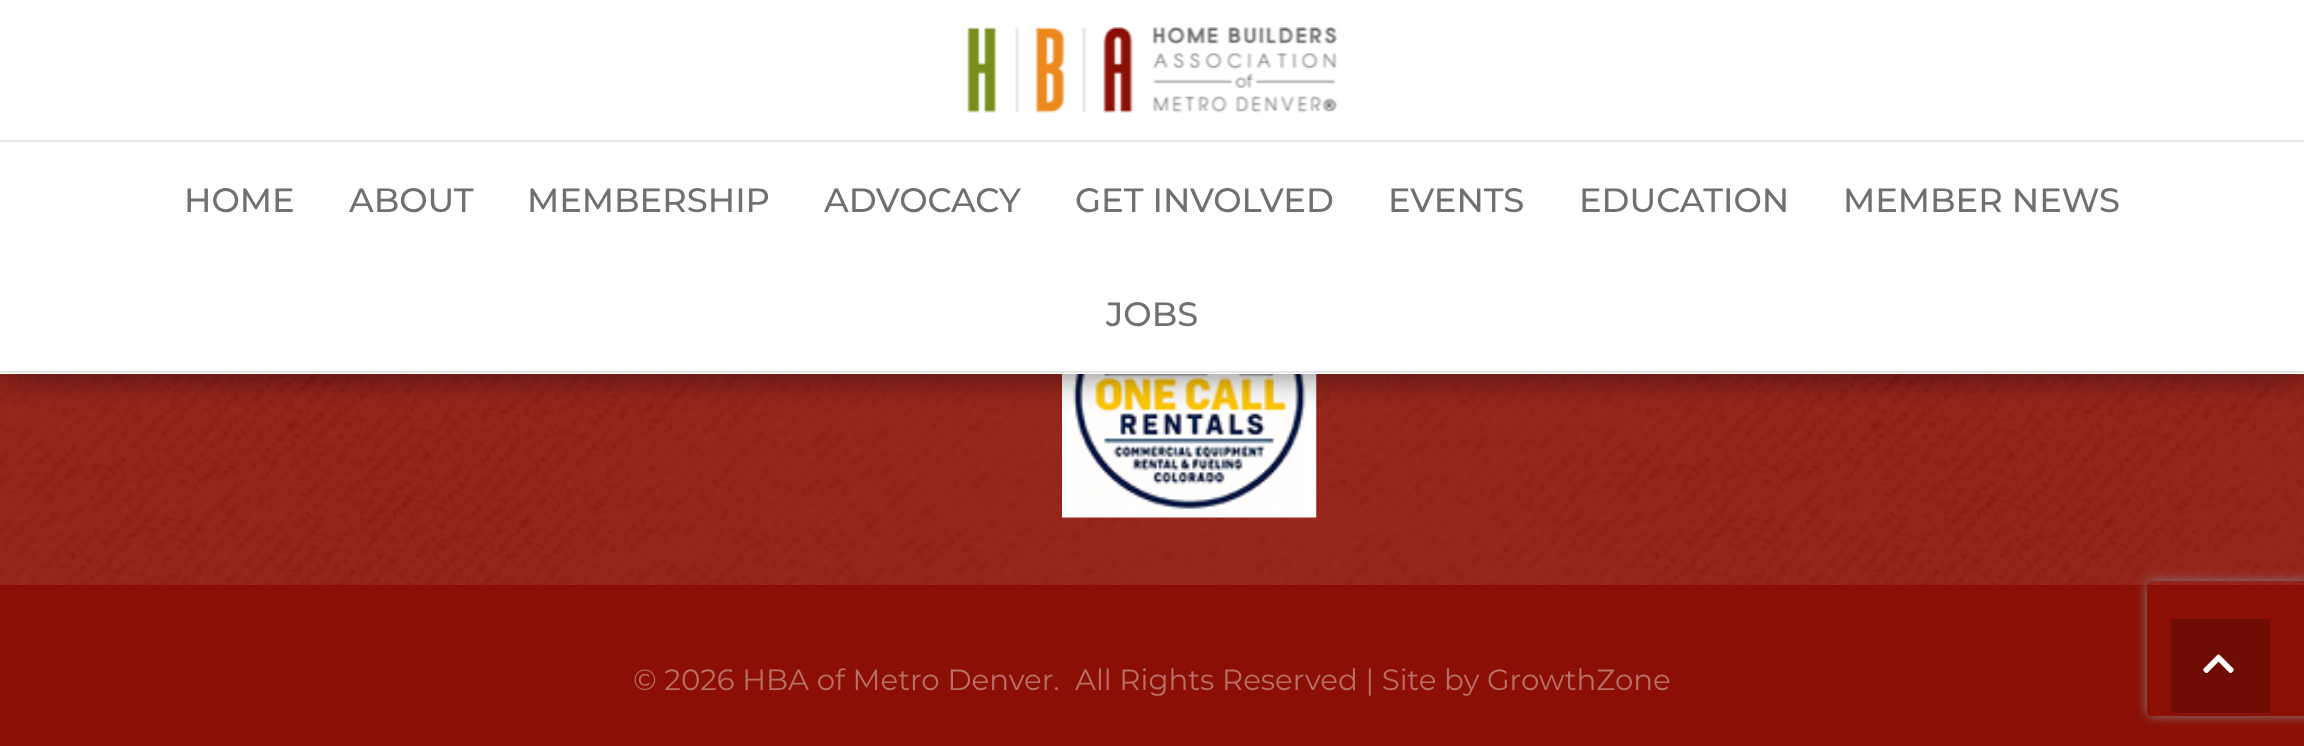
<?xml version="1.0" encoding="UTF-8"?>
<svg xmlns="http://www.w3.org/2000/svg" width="2304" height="746">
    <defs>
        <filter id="blur1" x="-50%" y="-200%" width="200%" height="500%"><feGaussianBlur stdDeviation="17"/></filter>
        <clipPath id="clip1"><path d="M 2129 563 H 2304 V 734 H 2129 Z M 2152 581 H 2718 C 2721 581 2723 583 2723 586 V 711 C 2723 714 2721 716 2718 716 H 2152 C 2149 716 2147 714 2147 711 V 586 C 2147 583 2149 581 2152 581 Z" clip-rule="evenodd"/></clipPath>
        <filter id="blur2" x="-50%" y="-200%" width="200%" height="500%"><feGaussianBlur stdDeviation="5.5"/></filter>
    </defs>
    <rect width="100%" height="100%" fill="#FFFFFF"/>
    <image x="0" y="374" width="2304" height="211" href="img_02.png"/>
    <image x="1062" y="374" width="255" height="144" href="img_03.png"/>
    <rect x="2" y="2" width="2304" height="374" fill="#000000" fill-opacity="0.5" filter="url(#blur1)"/>
    <rect x="0" y="0" width="2304" height="374" fill="#FFFFFF"/>
    <image x="967" y="27" width="371" height="86" href="img_01.png"/>
    <rect x="0" y="140" width="2304" height="2" fill="#E6E6E6"/>
    <rect x="0" y="371" width="2304" height="2" fill="#E6E6E6"/>
    <text x="184" y="212" font-family="Montserrat" font-size="33.75" font-weight="500" fill="#707070">HOME</text>
    <text x="349" y="212" font-family="Montserrat" font-size="33.75" font-weight="500" fill="#707070">ABOUT</text>
    <text x="527" y="212" font-family="Montserrat" font-size="33.75" font-weight="500" fill="#707070">MEMBERSHIP</text>
    <text x="824" y="212" font-family="Montserrat" font-size="33.75" font-weight="500" fill="#707070">ADVOCACY</text>
    <text x="1075" y="212" font-family="Montserrat" font-size="33.75" font-weight="500" fill="#707070">GET INVOLVED</text>
    <text x="1388" y="212" font-family="Montserrat" font-size="33.75" font-weight="500" fill="#707070">EVENTS</text>
    <text x="1579" y="212" font-family="Montserrat" font-size="33.75" font-weight="500" fill="#707070">EDUCATION</text>
    <text x="1843" y="212" font-family="Montserrat" font-size="33.75" font-weight="500" fill="#707070">MEMBER NEWS</text>
    <text x="1106" y="326" font-family="Montserrat" font-size="33.75" font-weight="500" fill="#707070">JOBS</text>
    <rect x="0" y="585" width="2304" height="161" fill="#8B0F04"/>
    <text x="633" y="690" font-family="Montserrat" font-size="29.25" fill="#B96F68">© 2026 HBA of Metro Denver.</text>
    <text x="1075" y="690" font-family="Montserrat" font-size="29.25" fill="#B96F68">All Rights Reserved | Site by GrowthZone</text>
    <g clip-path="url(#clip1)">
        <rect x="2147" y="581" width="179" height="135" rx="5" fill="#808080" filter="url(#blur2)"/>
    </g>
    <rect x="2171" y="619" width="99" height="94" fill="#6F0C03"/>
    <image x="2203" y="654" width="31" height="20" href="img_04.png"/>
</svg>
